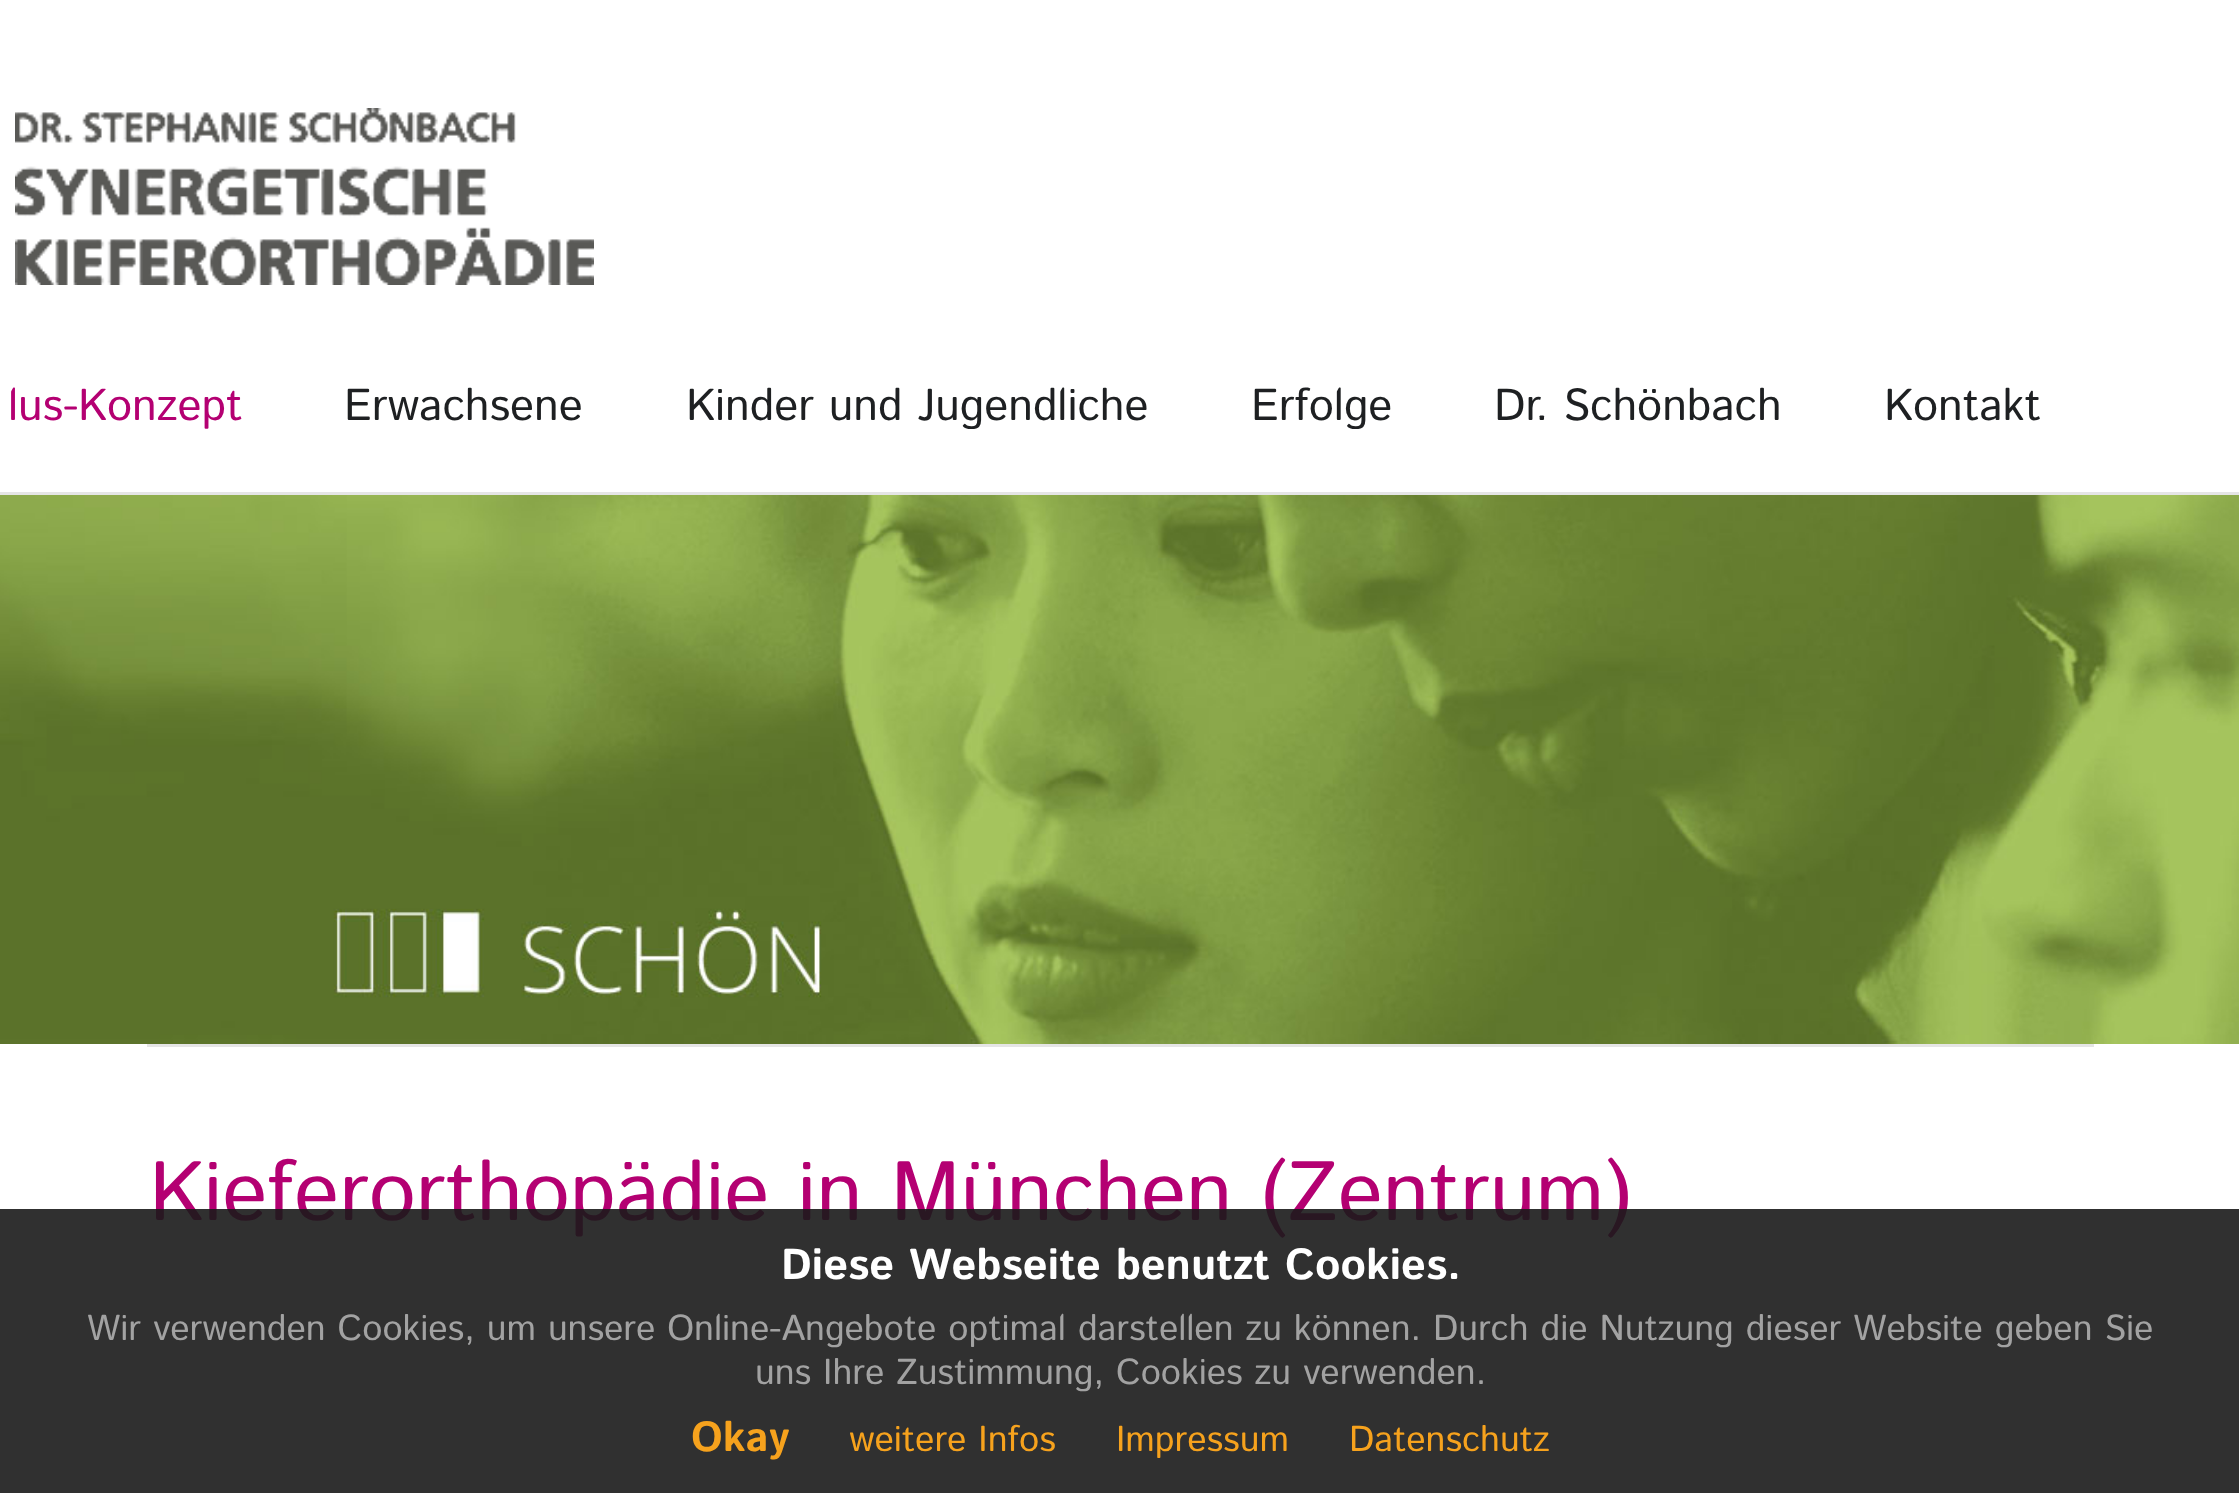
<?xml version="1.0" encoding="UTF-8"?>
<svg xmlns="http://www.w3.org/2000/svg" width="2239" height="1493">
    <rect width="100%" height="100%" fill="#FFFFFF"/>
    <rect x="0" y="492" width="2239" height="3" fill="#E5E5E5"/>
    <image x="15" y="108" width="579" height="177" href="img_01.png"/>
    <text x="8" y="420" font-family="Istok Web" font-size="44.75" fill="#B40072">lus-Konzept</text>
    <text x="344" y="420" font-family="Istok Web" font-size="44.75" fill="#1E2022">Erwachsene</text>
    <text x="686" y="420" font-family="Istok Web" font-size="44.75" fill="#1E2022">Kinder und Jugendliche</text>
    <text x="1251" y="420" font-family="Istok Web" font-size="44.75" fill="#1E2022">Erfolge</text>
    <text x="1494" y="420" font-family="Istok Web" font-size="44.75" fill="#1E2022">Dr. Schönbach</text>
    <text x="1884" y="420" font-family="Istok Web" font-size="44.75" fill="#1E2022">Kontakt</text>
    <rect x="147" y="1044" width="1947" height="3" fill="#E5E5E5"/>
    <image x="0" y="495" width="2239" height="549" href="img_02.png"/>
    <text x="149" y="1220" font-family="Istok Web" font-size="84" fill="#B40072">Kieferorthopädie in München (Zentrum)</text>
    <rect x="0" y="1209" width="2239" height="284" fill="#191919" fill-opacity="0.9"/>
    <text x="781" y="1279" font-family="Istok Web" font-size="43.25" font-weight="700" fill="#FFFFFF">Diese Webseite benutzt Cookies.</text>
    <text x="87" y="1340" font-family="Istok Web" font-size="36" fill="#A2A2A2">Wir verwenden Cookies, um unsere Online-Angebote optimal darstellen zu können. Durch die Nutzung dieser Website geben Sie</text>
    <text x="755" y="1384" font-family="Istok Web" font-size="36" fill="#A2A2A2">uns Ihre Zustimmung, Cookies zu verwenden.</text>
    <text x="691" y="1451" font-family="Istok Web" font-size="42" font-weight="700" fill="#F6A21D">Okay</text>
    <text x="849" y="1451" font-family="Istok Web" font-size="36" fill="#F6A21D">weitere Infos</text>
    <text x="1116" y="1451" font-family="Istok Web" font-size="36" fill="#F6A21D">Impressum</text>
    <text x="1349" y="1451" font-family="Istok Web" font-size="36" fill="#F6A21D">Datenschutz</text>
</svg>
